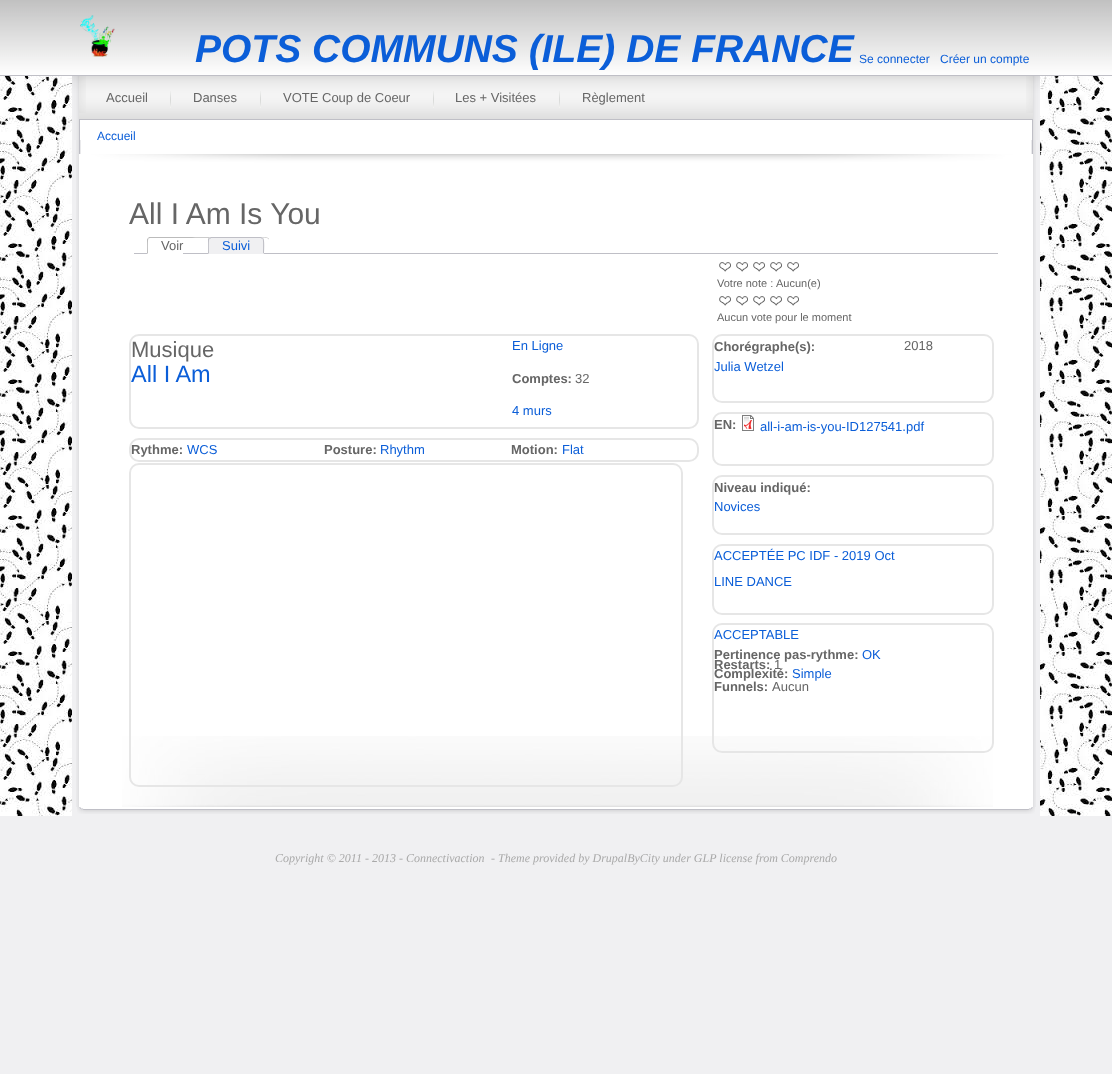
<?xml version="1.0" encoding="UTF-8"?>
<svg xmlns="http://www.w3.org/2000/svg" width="1112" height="1074">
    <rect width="100%" height="100%" fill="#F0F0F2"/>
    <image x="0" y="0" width="1112" height="75" href="img_01.png"/>
    <rect x="0" y="75" width="1112" height="1" fill="#BFBFC6"/>
    <image x="80" y="15" width="35" height="42" href="img_02.png"/>
    <text x="195" y="62" font-family="Liberation Sans" font-size="39" font-weight="700" font-style="italic" fill="#0B5ED8">POTS COMMUNS (ILE) DE FRANCE</text>
    <text x="859" y="63" font-family="Liberation Sans" font-size="12" fill="#0B5ED8">Se connecter</text>
    <text x="940" y="63" font-family="Liberation Sans" font-size="12" fill="#0B5ED8">Créer un compte</text>
    <image x="0" y="76" width="1112" height="740" href="img_03.png"/>
    <rect x="72" y="140" width="968" height="676" fill="#F0F0F2"/>
    <image x="76" y="140" width="960" height="667" href="img_04.png"/>
    <image x="72" y="76" width="968" height="64" href="img_05.png"/>
    <image x="79" y="76" width="954" height="43" href="img_06.png"/>
    <rect x="79" y="119" width="954" height="1" fill="#BFBFC6"/>
    <image x="79" y="76" width="7" height="37" href="img_07.png"/>
    <text x="106" y="102" font-family="Liberation Sans" font-size="13" fill="#666666">Accueil</text>
    <image x="170" y="91" width="1" height="17" href="img_08.png"/>
    <text x="193" y="102" font-family="Liberation Sans" font-size="13" fill="#666666">Danses</text>
    <image x="260" y="91" width="1" height="17" href="img_08.png"/>
    <text x="283" y="102" font-family="Liberation Sans" font-size="13" fill="#666666">VOTE Coup de Coeur</text>
    <image x="433" y="91" width="1" height="17" href="img_08.png"/>
    <text x="455" y="102" font-family="Liberation Sans" font-size="13" fill="#666666">Les + Visitées</text>
    <image x="559" y="91" width="1" height="17" href="img_08.png"/>
    <text x="582" y="102" font-family="Liberation Sans" font-size="13" fill="#666666">Règlement</text>
    <image x="1026" y="76" width="7" height="37" href="img_09.png"/>
    <text x="97" y="140" font-family="Liberation Sans" font-size="12" fill="#0B5ED8">Accueil</text>
    <image x="79" y="154" width="954" height="10" href="img_10.png"/>
    <rect x="79" y="164" width="954" height="643" fill="#FFFFFF"/>
    <image x="122" y="736" width="871" height="71" href="img_11.png"/>
    <text x="129" y="224" font-family="Liberation Sans" font-size="30" fill="#666666">All I Am Is You</text>
    <rect x="134" y="253" width="864" height="1" fill="#BFBFC6"/>
    <path d="M 150 237 H 183 V 254 H 147 V 240 C 147 238.5 148.5 237 150 237 Z" fill="#FFFFFF"/>
    <text x="161" y="250" font-family="Liberation Sans" font-size="13" fill="#666666">Voir</text>
    <path d="M 150 237 C 149 237 148.5 237.5 148 238 L 148.5 238.5 L 150 238 H 183 V 237 Z" fill="#BBBBBB"/>
    <path d="M 147 254 L 148 253 C 148 250.5 147.5 240 148.5 238.5 L 148 238 C 147.5 238.5 147 239 147 240 Z" fill="#BBBBBB"/>
    <path d="M 183 237 V 238 C 191 238 266 237 267 238 H 268 L 266 237 Z" fill="#BBBBBB"/>
    <path d="M 268 238 C 269 238 269 239 269 240 L 267.5 238.5 Z" fill="#BBBBBB"/>
    <path d="M 269 240 L 268 238 V 239 H 183 V 240 Z M 268 239 V 240 Z" fill="#FFFFFF" fill-rule="evenodd"/>
    <path d="M 211 237 H 261 C 262.5 237 264 238.5 264 240 V 254 H 208 V 240 C 208 238.5 209.5 237 211 237 Z" fill="#F0F0F2"/>
    <text x="222" y="250" font-family="Liberation Sans" font-size="13" fill="#0B5ED8">Suivi</text>
    <path d="M 211 237 L 209 238 L 210 239 L 211 238 H 261 L 262 239 L 263 238 L 261 237 Z" fill="#BFBFC6"/>
    <path d="M 264 254 C 264 251.5 265 239.5 263 238 L 262.5 238.5 C 263.5 240 263 250.5 263 253 Z" fill="#BFBFC6"/>
    <path d="M 264 254 L 263 253 H 209 L 208 254 Z" fill="#F0F0F2"/>
    <path d="M 208 254 L 209 253 C 209 250.5 208.5 240 209.5 238.5 L 209 238 C 208 238 208 239 208 240 Z" fill="#BFBFC6"/>
    <image x="719" y="262" width="12" height="10" href="img_12.png"/>
    <image x="736" y="262" width="12" height="10" href="img_12.png"/>
    <image x="753" y="262" width="12" height="10" href="img_12.png"/>
    <image x="770" y="262" width="12" height="10" href="img_12.png"/>
    <image x="787" y="262" width="12" height="10" href="img_12.png"/>
    <text x="717" y="287" font-family="Liberation Sans" font-size="11" fill="#666666">Votre note :</text>
    <text x="776" y="287" font-family="Liberation Sans" font-size="11" fill="#666666">Aucun(e)</text>
    <image x="719" y="296" width="12" height="10" href="img_12.png"/>
    <image x="736" y="296" width="12" height="10" href="img_12.png"/>
    <image x="753" y="296" width="12" height="10" href="img_12.png"/>
    <image x="770" y="296" width="12" height="10" href="img_12.png"/>
    <image x="787" y="296" width="12" height="10" href="img_12.png"/>
    <text x="717" y="321" font-family="Liberation Sans" font-size="11" fill="#666666">Aucun vote pour le moment</text>
    <rect x="130" y="335" width="568" height="93" rx="9" fill="none" stroke="#E6E6E6" stroke-width="2"/>
    <text x="131" y="357" font-family="Liberation Sans" font-size="22" fill="#666666">Musique</text>
    <text x="131" y="382" font-family="Liberation Sans" font-size="23.5" fill="#0B5ED8">All I Am</text>
    <text x="512" y="350" font-family="Liberation Sans" font-size="13" fill="#0B5ED8">En Ligne</text>
    <text x="512" y="383" font-family="Liberation Sans" font-size="13" font-weight="700" fill="#666666">Comptes:</text>
    <text x="575" y="383" font-family="Liberation Sans" font-size="13" fill="#666666">32</text>
    <text x="512" y="415" font-family="Liberation Sans" font-size="13" fill="#0B5ED8">4 murs</text>
    <rect x="130" y="439" width="568" height="22" rx="9" fill="none" stroke="#E6E6E6" stroke-width="2"/>
    <text x="131" y="454" font-family="Liberation Sans" font-size="13" font-weight="700" fill="#666666">Rythme:</text>
    <text x="187" y="454" font-family="Liberation Sans" font-size="13" fill="#0B5ED8">WCS</text>
    <text x="324" y="454" font-family="Liberation Sans" font-size="13" font-weight="700" fill="#666666">Posture:</text>
    <text x="380" y="454" font-family="Liberation Sans" font-size="13" fill="#0B5ED8">Rhythm</text>
    <text x="511" y="454" font-family="Liberation Sans" font-size="13" font-weight="700" fill="#666666">Motion:</text>
    <text x="562" y="454" font-family="Liberation Sans" font-size="13" fill="#0B5ED8">Flat</text>
    <rect x="713" y="335" width="280" height="67" rx="9" fill="none" stroke="#E6E6E6" stroke-width="2"/>
    <text x="714" y="351" font-family="Liberation Sans" font-size="13" font-weight="700" fill="#666666">Chorégraphe(s):</text>
    <text x="714" y="371" font-family="Liberation Sans" font-size="13" fill="#0B5ED8">Julia Wetzel</text>
    <text x="904" y="350" font-family="Liberation Sans" font-size="13" fill="#666666">2018</text>
    <rect x="713" y="413" width="280" height="52" rx="9" fill="none" stroke="#E6E6E6" stroke-width="2"/>
    <text x="714" y="429" font-family="Liberation Sans" font-size="13" font-weight="700" fill="#666666">EN:</text>
    <image x="742" y="415" width="12" height="16" href="img_13.png"/>
    <text x="760" y="431" font-family="Liberation Sans" font-size="13" fill="#0B5ED8">all-i-am-is-you-ID127541.pdf</text>
    <rect x="130" y="464" width="552" height="322" rx="9" fill="none" stroke="#E6E6E6" stroke-width="2"/>
    <rect x="713" y="476" width="280" height="58" rx="9" fill="none" stroke="#E6E6E6" stroke-width="2"/>
    <text x="714" y="492" font-family="Liberation Sans" font-size="13" font-weight="700" fill="#666666">Niveau indiqué:</text>
    <text x="714" y="511" font-family="Liberation Sans" font-size="13" fill="#0B5ED8">Novices</text>
    <rect x="713" y="545" width="280" height="69" rx="9" fill="none" stroke="#E6E6E6" stroke-width="2"/>
    <text x="714" y="560" font-family="Liberation Sans" font-size="13" fill="#0B5ED8">ACCEPTÉE PC IDF - 2019 Oct</text>
    <text x="714" y="586" font-family="Liberation Sans" font-size="13" fill="#0B5ED8">LINE DANCE</text>
    <rect x="713" y="624" width="280" height="128" rx="9" fill="none" stroke="#E6E6E6" stroke-width="2"/>
    <text x="714" y="639" font-family="Liberation Sans" font-size="13" fill="#0B5ED8">ACCEPTABLE</text>
    <text x="714" y="659" font-family="Liberation Sans" font-size="13" font-weight="700" fill="#666666">Pertinence pas-rythme:</text>
    <text x="862" y="659" font-family="Liberation Sans" font-size="13" fill="#0B5ED8">OK</text>
    <text x="714" y="669" font-family="Liberation Sans" font-size="13" font-weight="700" fill="#666666">Restarts:</text>
    <text x="774" y="669" font-family="Liberation Sans" font-size="13" fill="#666666">1</text>
    <text x="714" y="678" font-family="Liberation Sans" font-size="13" font-weight="700" fill="#666666">Complexité:</text>
    <text x="792" y="678" font-family="Liberation Sans" font-size="13" fill="#0B5ED8">Simple</text>
    <text x="714" y="691" font-family="Liberation Sans" font-size="13" font-weight="700" fill="#666666">Funnels:</text>
    <text x="772" y="691" font-family="Liberation Sans" font-size="13" fill="#666666">Aucun</text>
    <image x="77" y="807" width="958" height="7" href="img_14.png"/>
    <text x="275" y="862" font-family="Liberation Serif" font-size="12" font-style="italic" fill="#A9A9A9">Copyright © 2011 - 2013 - Connectivaction</text>
    <text x="491" y="862" font-family="Liberation Serif" font-size="12" font-style="italic" fill="#A9A9A9">- Theme provided by DrupalByCity under GLP license from Comprendo</text>
</svg>
